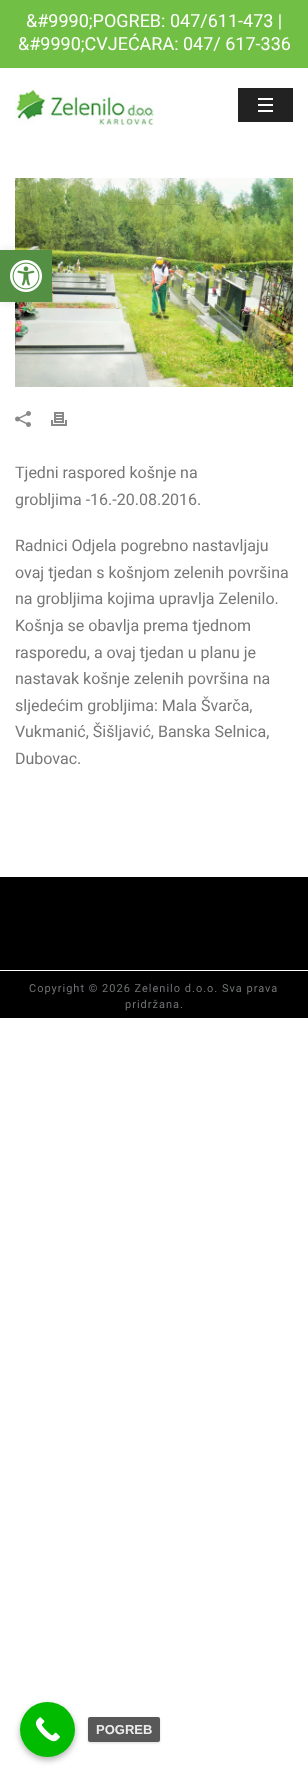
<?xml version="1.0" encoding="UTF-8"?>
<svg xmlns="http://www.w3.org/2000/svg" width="308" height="1772">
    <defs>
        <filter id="blur1" x="-50%" y="-200%" width="200%" height="500%"><feGaussianBlur stdDeviation="5"/></filter>
        <filter id="blur2" x="-50%" y="-200%" width="200%" height="500%"><feGaussianBlur stdDeviation="3"/></filter>
        <clipPath id="clip1"><path d="M 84 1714 H 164 V 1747 H 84 Z M 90 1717 H 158 C 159 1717 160 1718 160 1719 V 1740 C 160 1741 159 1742 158 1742 H 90 C 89 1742 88 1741 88 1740 V 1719 C 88 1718 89 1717 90 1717 Z" clip-rule="evenodd"/></clipPath>
        <filter id="blur3" x="-50%" y="-200%" width="200%" height="500%"><feGaussianBlur stdDeviation="1"/></filter>
    </defs>
    <rect width="100%" height="100%" fill="#FFFFFF"/>
    <rect x="0" y="0" width="308" height="68" fill="#71BF45"/>
    <text x="26" y="27" font-family="Roboto" font-size="18" fill="#FFFFFF">&amp;#9990;POGREB: 047/611-473 |</text>
    <text x="18" y="50" font-family="Roboto" font-size="18" fill="#FFFFFF">&amp;#9990;CVJEĆARA: 047/ 617-336</text>
    <image x="15" y="88" width="139" height="37" href="img_01.png"/>
    <rect x="238" y="88" width="55" height="34" fill="#222222"/>
    <rect x="258" y="104" width="15" height="2" fill="#FFFFFF"/>
    <rect x="258" y="98" width="15" height="2" fill="#FFFFFF"/>
    <rect x="258" y="110" width="15" height="2" fill="#FFFFFF"/>
    <image x="15" y="178" width="278" height="209" href="img_02.png"/>
    <image x="15" y="411" width="16" height="16" href="img_03.png"/>
    <image x="51" y="412" width="16" height="14" href="img_04.png"/>
    <text font-family="Roboto" font-size="16" fill="#777777">
        <tspan x="15" y="478">Tjedni raspored košnje na</tspan>
        <tspan x="15" y="505">grobljima -16.-20.08.2016.</tspan>
    </text>
    <text font-family="Roboto" font-size="16" fill="#777777">
        <tspan x="15" y="551">Radnici Odjela pogrebno nastavljaju</tspan>
        <tspan x="15" y="578">ovaj tjedan s košnjom zelenih površina</tspan>
        <tspan x="15" y="604">na grobljima kojima upravlja Zelenilo.</tspan>
        <tspan x="15" y="631">Košnja se obavlja prema tjednom</tspan>
        <tspan x="15" y="658">rasporedu, a ovaj tjedan u planu je</tspan>
        <tspan x="15" y="684">nastavak košnje zelenih površina na</tspan>
        <tspan x="15" y="711">sljedećim grobljima: Mala Švarča,</tspan>
        <tspan x="15" y="737">Vukmanić, Šišljavić, Banska Selnica,</tspan>
        <tspan x="15" y="764">Dubovac.</tspan>
    </text>
    <rect x="0" y="877" width="308" height="141" fill="#000000"/>
    <rect x="0" y="970" width="308" height="1" fill="#FFFFFF"/>
    <text x="29" y="992" font-family="Roboto" font-size="11" letter-spacing="1" fill="#707274">Copyright © 2026 Zelenilo d.o.o. Sva prava</text>
    <text x="125" y="1008" font-family="Roboto" font-size="11" letter-spacing="1" fill="#707274">pridržana.</text>
    <rect x="0" y="250" width="52" height="52" fill="#000000" fill-opacity="0.1" filter="url(#blur1)"/>
    <rect x="0" y="250" width="52" height="52" fill="#539044"/>
    <image x="10" y="260" width="32" height="32" href="img_05.png"/>
    <rect x="20" y="1705" width="55" height="55" rx="27.5" fill="#000000" fill-opacity="0.3" filter="url(#blur2)"/>
    <circle cx="47.5" cy="1729.5" r="27.5" fill="#00BB00"/>
    <image x="35" y="1717" width="25" height="25" href="img_06.png"/>
    <g clip-path="url(#clip1)">
        <rect x="88" y="1718" width="72" height="25" rx="2" fill="#000000" fill-opacity="0.15" filter="url(#blur3)"/>
    </g>
    <rect x="88" y="1717" width="72" height="25" rx="2" fill="#464646" fill-opacity="0.9"/>
    <text x="96" y="1734" font-family="Liberation Sans" font-size="13" font-weight="700" fill="#ECECEC">POGREB</text>
</svg>
